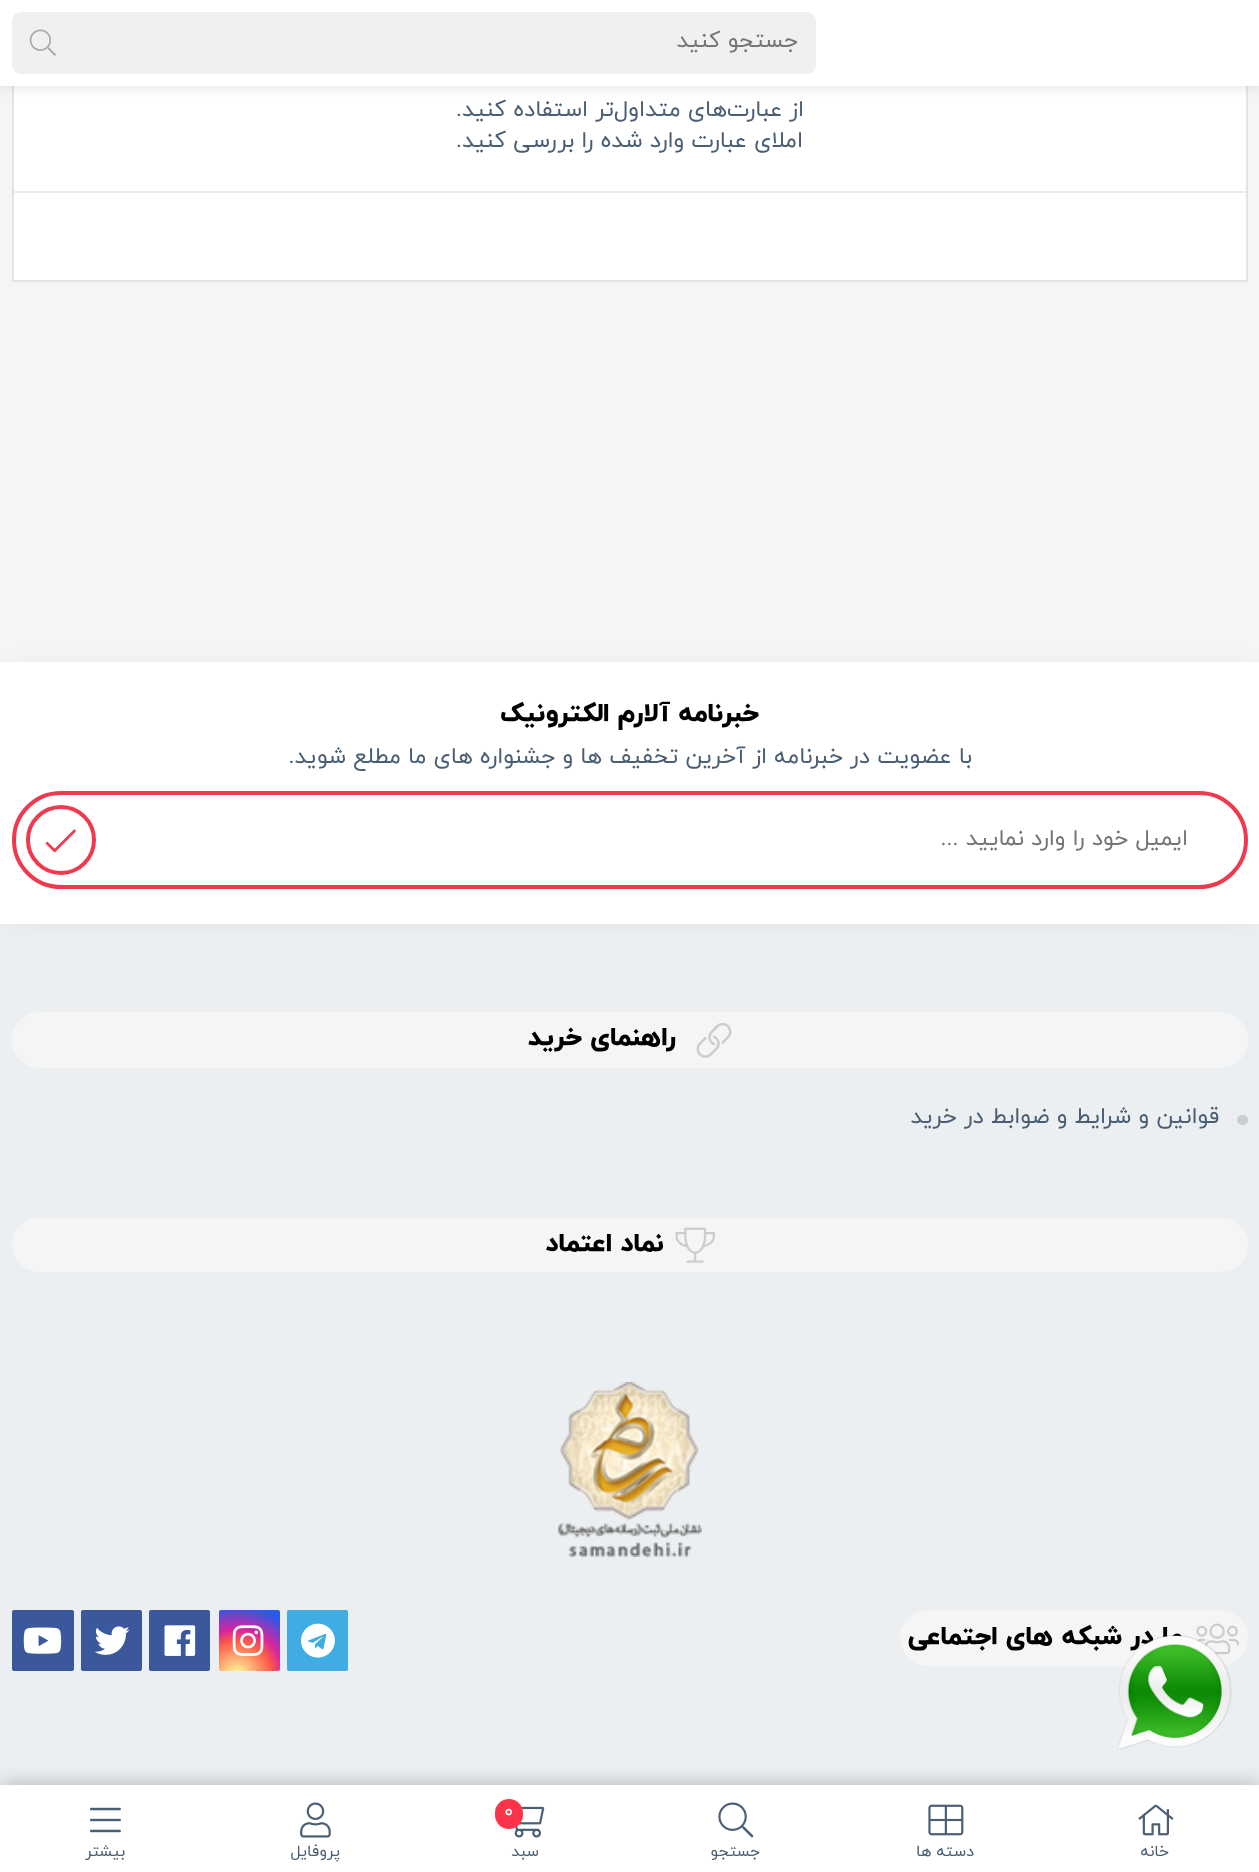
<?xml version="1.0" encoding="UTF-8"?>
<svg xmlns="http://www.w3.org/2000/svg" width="1259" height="1872">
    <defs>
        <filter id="blur1" x="-50%" y="-200%" width="200%" height="500%"><feGaussianBlur stdDeviation="9"/></filter>
        <filter id="blur2" x="-50%" y="-200%" width="200%" height="500%"><feGaussianBlur stdDeviation="14"/></filter>
        <radialGradient id="g1" gradientUnits="userSpaceOnUse" cx="237" cy="1676" r="78"><stop offset="0" stop-color="#FDF497"/><stop offset="0.05" stop-color="#FDF497"/><stop offset="0.45" stop-color="#FD5949"/><stop offset="0.6" stop-color="#D6249F"/><stop offset="0.9" stop-color="#285AEB"/></radialGradient>
    </defs>
    <rect width="100%" height="100%" fill="#F5F5F5"/>
    <rect x="14" y="86" width="1232" height="194" fill="#FFFFFF"/>
    <rect x="13" y="-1" width="1234" height="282" fill="none" stroke="#E4E4E4" stroke-width="2"/>
    <rect x="0" y="-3" width="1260" height="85" fill="#000000" fill-opacity="0.2" filter="url(#blur1)"/>
    <rect x="0" y="0" width="1259" height="86" fill="#FFFFFF"/>
    <rect x="12" y="12" width="804" height="62" rx="9" fill="#F0F0F1"/>
    <text x="798" y="47" font-family="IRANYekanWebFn" font-size="22.75" direction="rtl" fill="#757575">جستجو كنيد</text>
    <image x="29" y="29" width="27" height="27" href="img_01.png"/>
    <text x="804" y="116" font-family="IRANYekanWebFn" font-size="22.75" direction="rtl" fill="#4A5F73">از عبارت‌های متداول‌تر استفاده کنید.</text>
    <text x="803" y="147" font-family="IRANYekanWebFn" font-size="22.75" direction="rtl" fill="#4A5F73">املای عبارت وارد شده را بررسی کنید.</text>
    <rect x="14" y="191" width="1232" height="2" fill="#EBE9E9"/>
    <rect x="0" y="924" width="1259" height="861" fill="#ECEFF1"/>
    <rect x="11" y="672" width="1239" height="242" fill="#000000" fill-opacity="0.1" filter="url(#blur2)"/>
    <rect x="0" y="662" width="1259" height="262" fill="#FFFFFF"/>
    <text x="759" y="721" font-family="IRANYekanWebFn" font-size="26.25" font-weight="800" direction="rtl" fill="#000000">خبرنامه آلارم الکترونیک</text>
    <text x="972" y="763" font-family="IRANYekanWebFn" font-size="22.75" direction="rtl" fill="#4A5F73">با عضویت در خبرنامه از آخرین تخفیف ها و جشنواره های ما مطلع شوید.</text>
    <rect x="14" y="793" width="1232" height="94" rx="47" fill="none" stroke="#EF394E" stroke-width="4"/>
    <text x="1188" y="845" font-family="IRANYekanWebFn" font-size="22.75" direction="rtl" fill="#757575">ایمیل خود را وارد نمایید ...</text>
    <circle cx="61" cy="840" r="33" fill="none" stroke="#EF394E" stroke-width="4"/>
    <image x="45" y="829" width="31" height="24" href="img_02.png"/>
    <rect x="12" y="1012" width="1236" height="56" rx="28" fill="#F5F5F5"/>
    <image x="696" y="1023" width="36" height="35" href="img_03.png"/>
    <text x="676" y="1045" font-family="IRANYekanWebFn" font-size="26.25" font-weight="800" direction="rtl" fill="#000000">راهنمای خرید</text>
    <rect x="1237" y="1115" width="11" height="10" rx="5" fill="#CCCCCC"/>
    <text x="1219" y="1123" font-family="IRANYekanWebFn" font-size="22.75" direction="rtl" fill="#4A5F73">قوانین و شرایط و ضوابط در خرید</text>
    <rect x="12" y="1218" width="1236" height="54" rx="27" fill="#F5F5F5"/>
    <image x="675" y="1227" width="40" height="36" href="img_04.png"/>
    <text x="664" y="1251" font-family="IRANYekanWebFn" font-size="26.25" font-weight="800" direction="rtl" fill="#000000">نماد اعتماد</text>
    <image x="558" y="1382" width="144" height="175" href="img_05.png"/>
    <rect x="900" y="1610" width="348" height="56" rx="28" fill="#F5F5F5"/>
    <image x="1196" y="1623" width="43" height="32" href="img_06.png"/>
    <text x="1183" y="1644" font-family="IRANYekanWebFn" font-size="26.25" font-weight="800" direction="rtl" fill="#000000">ما در شبكه های اجتماعی</text>
    <rect x="287" y="1610" width="61" height="61" rx="2" fill="#3FADE4"/>
    <image x="301" y="1623" width="34" height="35" href="img_07.png"/>
    <rect x="219" y="1610" width="61" height="61" rx="2" fill="url(#g1)"/>
    <image x="232" y="1625" width="32" height="31" href="img_08.png"/>
    <rect x="149" y="1610" width="61" height="61" rx="2" fill="#3A589B"/>
    <image x="164" y="1625" width="32" height="31" href="img_09.png"/>
    <rect x="81" y="1610" width="61" height="61" rx="2" fill="#3A589B"/>
    <image x="94" y="1626" width="36" height="29" href="img_10.png"/>
    <rect x="12" y="1610" width="62" height="61" rx="2" fill="#3A589B"/>
    <image x="23" y="1627" width="39" height="27" href="img_11.png"/>
    <image x="1117" y="1635" width="115" height="115" href="img_12.png"/>
    <rect x="0" y="1782" width="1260" height="87" fill="#000000" fill-opacity="0.2" filter="url(#blur1)"/>
    <rect x="0" y="1785" width="1259" height="87" fill="#FFFFFF"/>
    <image x="1138" y="1804" width="36" height="32" href="img_13.png"/>
    <text x="1169" y="1856" font-family="IRANYekanWebFn" font-size="16" direction="rtl" fill="#4A5F73">خانه</text>
    <image x="928" y="1804" width="36" height="32" href="img_14.png"/>
    <text x="974" y="1856" font-family="IRANYekanWebFn" font-size="16" direction="rtl" fill="#4A5F73">دسته ها</text>
    <image x="718" y="1802" width="36" height="36" href="img_15.png"/>
    <text x="760" y="1856" font-family="IRANYekanWebFn" font-size="16" direction="rtl" fill="#4A5F73">جستجو</text>
    <image x="514" y="1806" width="31" height="32" href="img_16.png"/>
    <rect x="495" y="1799" width="28" height="30" rx="14" fill="#FB3449"/>
    <text x="504" y="1817" font-family="IRANYekanWebFn" font-size="19" fill="#FFFFFF">0</text>
    <text x="539" y="1856" font-family="IRANYekanWebFn" font-size="16" direction="rtl" fill="#4A5F73">سبد</text>
    <image x="300" y="1802" width="31" height="36" href="img_17.png"/>
    <text x="340" y="1856" font-family="IRANYekanWebFn" font-size="16" direction="rtl" fill="#4A5F73">پروفایل</text>
    <image x="90" y="1807" width="31" height="26" href="img_18.png"/>
    <text x="125" y="1856" font-family="IRANYekanWebFn" font-size="16" direction="rtl" fill="#4A5F73">بیشتر</text>
</svg>
